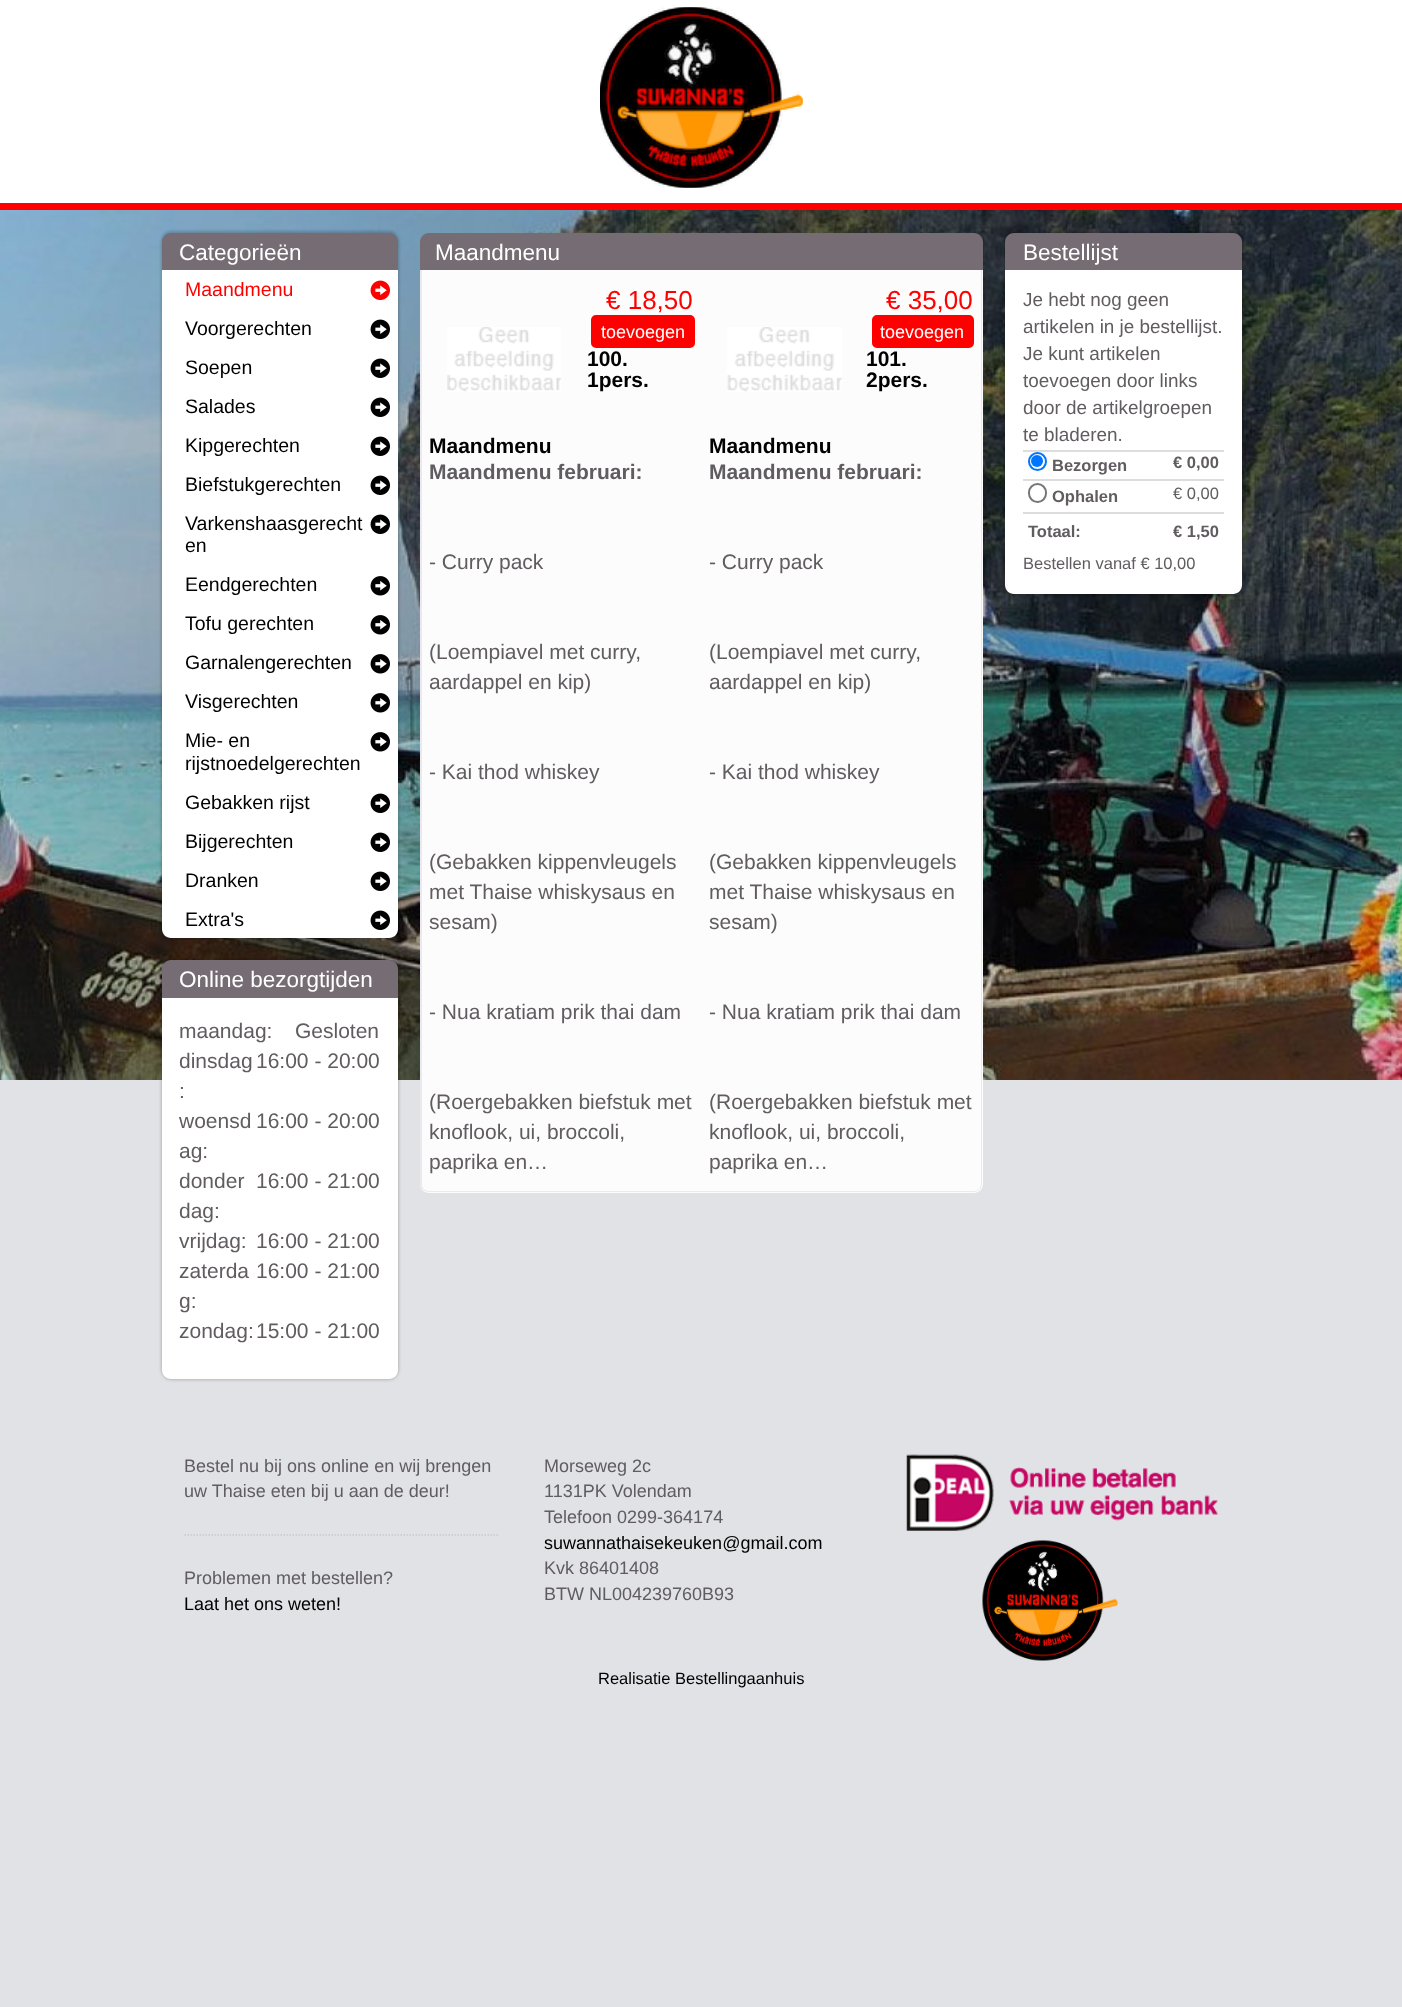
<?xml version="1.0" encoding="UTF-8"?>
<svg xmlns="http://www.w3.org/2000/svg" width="1402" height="2007">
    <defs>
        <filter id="blur1" x="-50%" y="-200%" width="200%" height="500%"><feGaussianBlur stdDeviation="1.5"/></filter>
    </defs>
    <rect width="100%" height="100%" fill="#E0E2E5"/>
    <rect x="0" y="0" width="1402" height="203" fill="#FFFFFF"/>
    <rect x="0" y="203" width="1402" height="7" fill="#FF0000"/>
    <image x="600" y="7" width="203" height="181" href="img_01.png"/>
    <image x="600" y="7" width="203" height="181" href="img_02.png"/>
    <image x="0" y="210" width="1402" height="870" href="img_03.png"/>
    <rect x="161" y="231" width="238" height="708" rx="11" fill="#000000" fill-opacity="0.2" filter="url(#blur1)"/>
    <path d="M 171 233 H 389 C 394 233 398 237 398 242 V 270 H 162 V 242 C 162 237 166 233 171 233 Z" fill="#766C73"/>
    <text x="179" y="260" font-family="Liberation Sans" font-size="22.5" fill="#FFFFFF">Categorieën</text>
    <path d="M 162 270 H 398 V 929 C 398 934 394 938 389 938 H 171 C 166 938 162 934 162 929 Z" fill="#FFFFFF"/>
    <text x="185" y="296" font-family="Liberation Sans" font-size="19.5" fill="#FF0000">Maandmenu</text>
    <image x="370" y="280" width="20" height="20" href="img_04.png"/>
    <text x="185" y="335" font-family="Liberation Sans" font-size="19.5" fill="#000000">Voorgerechten</text>
    <image x="370" y="319" width="20" height="20" href="img_05.png"/>
    <text x="185" y="374" font-family="Liberation Sans" font-size="19.5" fill="#000000">Soepen</text>
    <image x="370" y="358" width="20" height="20" href="img_05.png"/>
    <text x="185" y="413" font-family="Liberation Sans" font-size="19.5" fill="#000000">Salades</text>
    <image x="370" y="397" width="20" height="20" href="img_05.png"/>
    <text x="185" y="452" font-family="Liberation Sans" font-size="19.5" fill="#000000">Kipgerechten</text>
    <image x="370" y="436" width="20" height="20" href="img_05.png"/>
    <text x="185" y="491" font-family="Liberation Sans" font-size="19.5" fill="#000000">Biefstukgerechten</text>
    <image x="370" y="475" width="20" height="20" href="img_05.png"/>
    <text x="185" y="530" font-family="Liberation Sans" font-size="19.5" fill="#000000">Varkenshaasgerecht</text>
    <image x="370" y="514" width="20" height="20" href="img_05.png"/>
    <text x="185" y="552" font-family="Liberation Sans" font-size="19.5" fill="#000000">en</text>
    <text x="185" y="591" font-family="Liberation Sans" font-size="19.5" fill="#000000">Eendgerechten</text>
    <image x="370" y="576" width="20" height="20" href="img_06.png"/>
    <text x="185" y="630" font-family="Liberation Sans" font-size="19.5" fill="#000000">Tofu gerechten</text>
    <image x="370" y="615" width="20" height="20" href="img_06.png"/>
    <text x="185" y="669" font-family="Liberation Sans" font-size="19.5" fill="#000000">Garnalengerechten</text>
    <image x="370" y="654" width="20" height="20" href="img_06.png"/>
    <text x="185" y="708" font-family="Liberation Sans" font-size="19.5" fill="#000000">Visgerechten</text>
    <image x="370" y="693" width="20" height="20" href="img_06.png"/>
    <text x="185" y="747" font-family="Liberation Sans" font-size="19.5" fill="#000000">Mie- en</text>
    <image x="370" y="732" width="20" height="20" href="img_06.png"/>
    <text x="185" y="770" font-family="Liberation Sans" font-size="19.5" fill="#000000">rijstnoedelgerechten</text>
    <text x="185" y="809" font-family="Liberation Sans" font-size="19.5" fill="#000000">Gebakken rijst</text>
    <image x="370" y="793" width="20" height="20" href="img_05.png"/>
    <text x="185" y="848" font-family="Liberation Sans" font-size="19.5" fill="#000000">Bijgerechten</text>
    <image x="370" y="832" width="20" height="20" href="img_05.png"/>
    <text x="185" y="887" font-family="Liberation Sans" font-size="19.5" fill="#000000">Dranken</text>
    <image x="370" y="871" width="20" height="20" href="img_05.png"/>
    <text x="185" y="926" font-family="Liberation Sans" font-size="19.5" fill="#000000">Extra's</text>
    <image x="370" y="910" width="20" height="20" href="img_05.png"/>
    <rect x="161" y="959" width="238" height="421" rx="11" fill="#000000" fill-opacity="0.2" filter="url(#blur1)"/>
    <path d="M 171 960 H 389 C 394 960 398 964 398 969 V 998 H 162 V 969 C 162 964 166 960 171 960 Z" fill="#766C73"/>
    <text x="179" y="987" font-family="Liberation Sans" font-size="22.5" fill="#FFFFFF">Online bezorgtijden</text>
    <path d="M 162 998 H 398 V 1370 C 398 1375 394 1379 389 1379 H 171 C 166 1379 162 1375 162 1370 Z" fill="#FFFFFF"/>
    <text x="179" y="1038" font-family="Liberation Sans" font-size="21" fill="#605C60">maandag:</text>
    <text x="295" y="1038" font-family="Liberation Sans" font-size="21" fill="#605C60">Gesloten</text>
    <text x="179" y="1068" font-family="Liberation Sans" font-size="21" fill="#605C60">dinsdag</text>
    <text x="256" y="1068" font-family="Liberation Sans" font-size="21" fill="#605C60">16:00 - 20:00</text>
    <text font-family="Liberation Sans" font-size="21" fill="#605C60">
        <tspan x="179" y="1098">:</tspan>
        <tspan x="179" y="1128">woensd</tspan>
    </text>
    <text x="256" y="1128" font-family="Liberation Sans" font-size="21" fill="#605C60">16:00 - 20:00</text>
    <text font-family="Liberation Sans" font-size="21" fill="#605C60">
        <tspan x="179" y="1158">ag:</tspan>
        <tspan x="179" y="1188">donder</tspan>
    </text>
    <text x="256" y="1188" font-family="Liberation Sans" font-size="21" fill="#605C60">16:00 - 21:00</text>
    <text font-family="Liberation Sans" font-size="21" fill="#605C60">
        <tspan x="179" y="1218">dag:</tspan>
        <tspan x="179" y="1248">vrijdag:</tspan>
    </text>
    <text x="256" y="1248" font-family="Liberation Sans" font-size="21" fill="#605C60">16:00 - 21:00</text>
    <text x="179" y="1278" font-family="Liberation Sans" font-size="21" fill="#605C60">zaterda</text>
    <text x="256" y="1278" font-family="Liberation Sans" font-size="21" fill="#605C60">16:00 - 21:00</text>
    <text font-family="Liberation Sans" font-size="21" fill="#605C60">
        <tspan x="179" y="1308">g:</tspan>
        <tspan x="179" y="1338">zondag:</tspan>
    </text>
    <text x="256" y="1338" font-family="Liberation Sans" font-size="21" fill="#605C60">15:00 - 21:00</text>
    <path d="M 429 233 H 974 C 979 233 983 237 983 242 V 270 H 420 V 242 C 420 237 424 233 429 233 Z" fill="#766C73"/>
    <text x="435" y="260" font-family="Liberation Sans" font-size="22.5" fill="#FFFFFF">Maandmenu</text>
    <path d="M 420 270 H 983 V 1184 C 983 1189 979 1193 974 1193 H 429 C 424 1193 420 1189 420 1184 Z" fill="#FCFCFC"/>
    <path d="M 420 270 H 982 V 1184 C 982 1188 978 1192 974 1192 H 429 C 424 1192 420 1188 420 1184 Z M 422 270 H 981 V 1184 C 981 1188 978 1191 974 1191 H 429 C 425 1191 422 1188 422 1184 Z" fill="#EBE8EF" fill-rule="evenodd"/>
    <text x="606" y="309" font-family="Liberation Sans" font-size="26" fill="#FF0000">€ 18,50</text>
    <rect x="592" y="316" width="102" height="31" rx="4" fill="#FF0000" stroke="#FF0000" stroke-width="2"/>
    <text x="601" y="338" font-family="Liberation Sans" font-size="18" fill="#FFFFFF">toevoegen</text>
    <image x="447" y="327" width="114" height="65" href="img_07.png"/>
    <text font-family="Liberation Sans" font-size="21" font-weight="700" fill="#000000">
        <tspan x="587" y="366">100.</tspan>
        <tspan x="587" y="387">1pers.</tspan>
    </text>
    <text x="429" y="453" font-family="Liberation Sans" font-size="21" font-weight="700" fill="#000000">Maandmenu</text>
    <text x="429" y="479" font-family="Liberation Sans" font-size="21" font-weight="700" fill="#605C60">Maandmenu februari:</text>
    <text x="429" y="569" font-family="Liberation Sans" font-size="21" fill="#605C60">- Curry pack</text>
    <text font-family="Liberation Sans" font-size="21" fill="#605C60">
        <tspan x="429" y="659">(Loempiavel met curry,</tspan>
        <tspan x="429" y="689">aardappel en kip)</tspan>
    </text>
    <text x="429" y="779" font-family="Liberation Sans" font-size="21" fill="#605C60">- Kai thod whiskey</text>
    <text font-family="Liberation Sans" font-size="21" fill="#605C60">
        <tspan x="429" y="869">(Gebakken kippenvleugels</tspan>
        <tspan x="429" y="899">met Thaise whiskysaus en</tspan>
        <tspan x="429" y="929">sesam)</tspan>
    </text>
    <text x="429" y="1019" font-family="Liberation Sans" font-size="21" fill="#605C60">- Nua kratiam prik thai dam</text>
    <text font-family="Liberation Sans" font-size="21" fill="#605C60">
        <tspan x="429" y="1109">(Roergebakken biefstuk met</tspan>
        <tspan x="429" y="1139">knoflook, ui, broccoli,</tspan>
        <tspan x="429" y="1169">paprika en…</tspan>
    </text>
    <text x="886" y="309" font-family="Liberation Sans" font-size="26" fill="#FF0000">€ 35,00</text>
    <rect x="873" y="316" width="100" height="31" rx="4" fill="#FF0000" stroke="#FF0000" stroke-width="2"/>
    <text x="880" y="338" font-family="Liberation Sans" font-size="18" fill="#FFFFFF">toevoegen</text>
    <image x="727" y="327" width="115" height="65" href="img_08.png"/>
    <text font-family="Liberation Sans" font-size="21" font-weight="700" fill="#000000">
        <tspan x="866" y="366">101.</tspan>
        <tspan x="866" y="387">2pers.</tspan>
    </text>
    <text x="709" y="453" font-family="Liberation Sans" font-size="21" font-weight="700" fill="#000000">Maandmenu</text>
    <text x="709" y="479" font-family="Liberation Sans" font-size="21" font-weight="700" fill="#605C60">Maandmenu februari:</text>
    <text x="709" y="569" font-family="Liberation Sans" font-size="21" fill="#605C60">- Curry pack</text>
    <text font-family="Liberation Sans" font-size="21" fill="#605C60">
        <tspan x="709" y="659">(Loempiavel met curry,</tspan>
        <tspan x="709" y="689">aardappel en kip)</tspan>
    </text>
    <text x="709" y="779" font-family="Liberation Sans" font-size="21" fill="#605C60">- Kai thod whiskey</text>
    <text font-family="Liberation Sans" font-size="21" fill="#605C60">
        <tspan x="709" y="869">(Gebakken kippenvleugels</tspan>
        <tspan x="709" y="899">met Thaise whiskysaus en</tspan>
        <tspan x="709" y="929">sesam)</tspan>
    </text>
    <text x="709" y="1019" font-family="Liberation Sans" font-size="21" fill="#605C60">- Nua kratiam prik thai dam</text>
    <text font-family="Liberation Sans" font-size="21" fill="#605C60">
        <tspan x="709" y="1109">(Roergebakken biefstuk met</tspan>
        <tspan x="709" y="1139">knoflook, ui, broccoli,</tspan>
        <tspan x="709" y="1169">paprika en…</tspan>
    </text>
    <rect x="1004" y="231" width="240" height="365" rx="11" fill="#000000" fill-opacity="0.2" filter="url(#blur1)"/>
    <path d="M 1014 233 H 1233 C 1238 233 1242 237 1242 242 V 270 H 1005 V 242 C 1005 237 1009 233 1014 233 Z" fill="#766C73"/>
    <text x="1023" y="260" font-family="Liberation Sans" font-size="22.5" fill="#FFFFFF">Bestellijst</text>
    <path d="M 1005 270 H 1242 V 585 C 1242 590 1238 594 1233 594 H 1014 C 1009 594 1005 590 1005 585 Z" fill="#FFFFFF"/>
    <text font-family="Liberation Sans" font-size="18.9" fill="#605C60">
        <tspan x="1023" y="306">Je hebt nog geen</tspan>
        <tspan x="1023" y="333">artikelen in je bestellijst.</tspan>
        <tspan x="1023" y="360">Je kunt artikelen</tspan>
        <tspan x="1023" y="387">toevoegen door links</tspan>
        <tspan x="1023" y="414">door de artikelgroepen</tspan>
        <tspan x="1023" y="441">te bladeren.</tspan>
    </text>
    <circle cx="1037.5" cy="461.5" r="8.5" fill="none" stroke="#0075FF" stroke-width="2"/>
    <circle cx="1037" cy="461" r="6" fill="#0075FF"/>
    <text x="1052" y="471" font-family="Liberation Sans" font-size="16.5" font-weight="700" fill="#605C60">Bezorgen</text>
    <rect x="1023" y="450" width="201" height="2" fill="#DDDDDD"/>
    <text x="1173" y="468" font-family="Liberation Sans" font-size="16.5" font-weight="700" fill="#605C60">€ 0,00</text>
    <rect x="1029" y="484" width="17" height="18" rx="8.5" fill="none" stroke="#767676" stroke-width="2"/>
    <text x="1052" y="502" font-family="Liberation Sans" font-size="16.5" font-weight="700" fill="#605C60">Ophalen</text>
    <rect x="1023" y="479" width="201" height="2" fill="#DDDDDD"/>
    <text x="1173" y="499" font-family="Liberation Sans" font-size="16.5" fill="#605C60">€ 0,00</text>
    <text x="1028" y="537" font-family="Liberation Sans" font-size="16.5" font-weight="700" fill="#605C60">Totaal:</text>
    <rect x="1023" y="512" width="201" height="2" fill="#DDDDDD"/>
    <text x="1173" y="537" font-family="Liberation Sans" font-size="16.5" font-weight="700" fill="#605C60">€ 1,50</text>
    <text x="1023" y="569" font-family="Liberation Sans" font-size="16.5" fill="#605C60">Bestellen vanaf € 10,00</text>
    <text font-family="Liberation Sans" font-size="18" fill="#605C60">
        <tspan x="184" y="1472">Bestel nu bij ons online en wij brengen</tspan>
        <tspan x="184" y="1497">uw Thaise eten bij u aan de deur!</tspan>
    </text>
    <path d="M 184.5 1535 H 499.5" fill="none" stroke="#CACACA" stroke-width="1.5" stroke-dasharray="1.5 1.5"/>
    <text x="184" y="1584" font-family="Liberation Sans" font-size="18" fill="#605C60">Problemen met bestellen?</text>
    <text x="184" y="1610" font-family="Liberation Sans" font-size="18" fill="#000000">Laat het ons weten!</text>
    <text font-family="Liberation Sans" font-size="18" fill="#605C60">
        <tspan x="544" y="1472">Morseweg 2c</tspan>
        <tspan x="544" y="1497">1131PK Volendam</tspan>
        <tspan x="544" y="1523">Telefoon 0299-364174</tspan>
    </text>
    <text x="544" y="1549" font-family="Liberation Sans" font-size="18" fill="#000000">suwannathaisekeuken@gmail.com</text>
    <text font-family="Liberation Sans" font-size="18" fill="#605C60">
        <tspan x="544" y="1574">Kvk 86401408</tspan>
        <tspan x="544" y="1600">BTW NL004239760B93</tspan>
    </text>
    <image x="906" y="1454" width="313" height="77" href="img_09.png"/>
    <image x="982" y="1540" width="136" height="121" href="img_10.png"/>
    <text x="598" y="1684" font-family="Liberation Sans" font-size="16.5" fill="#000000">Realisatie Bestellingaanhuis</text>
</svg>
